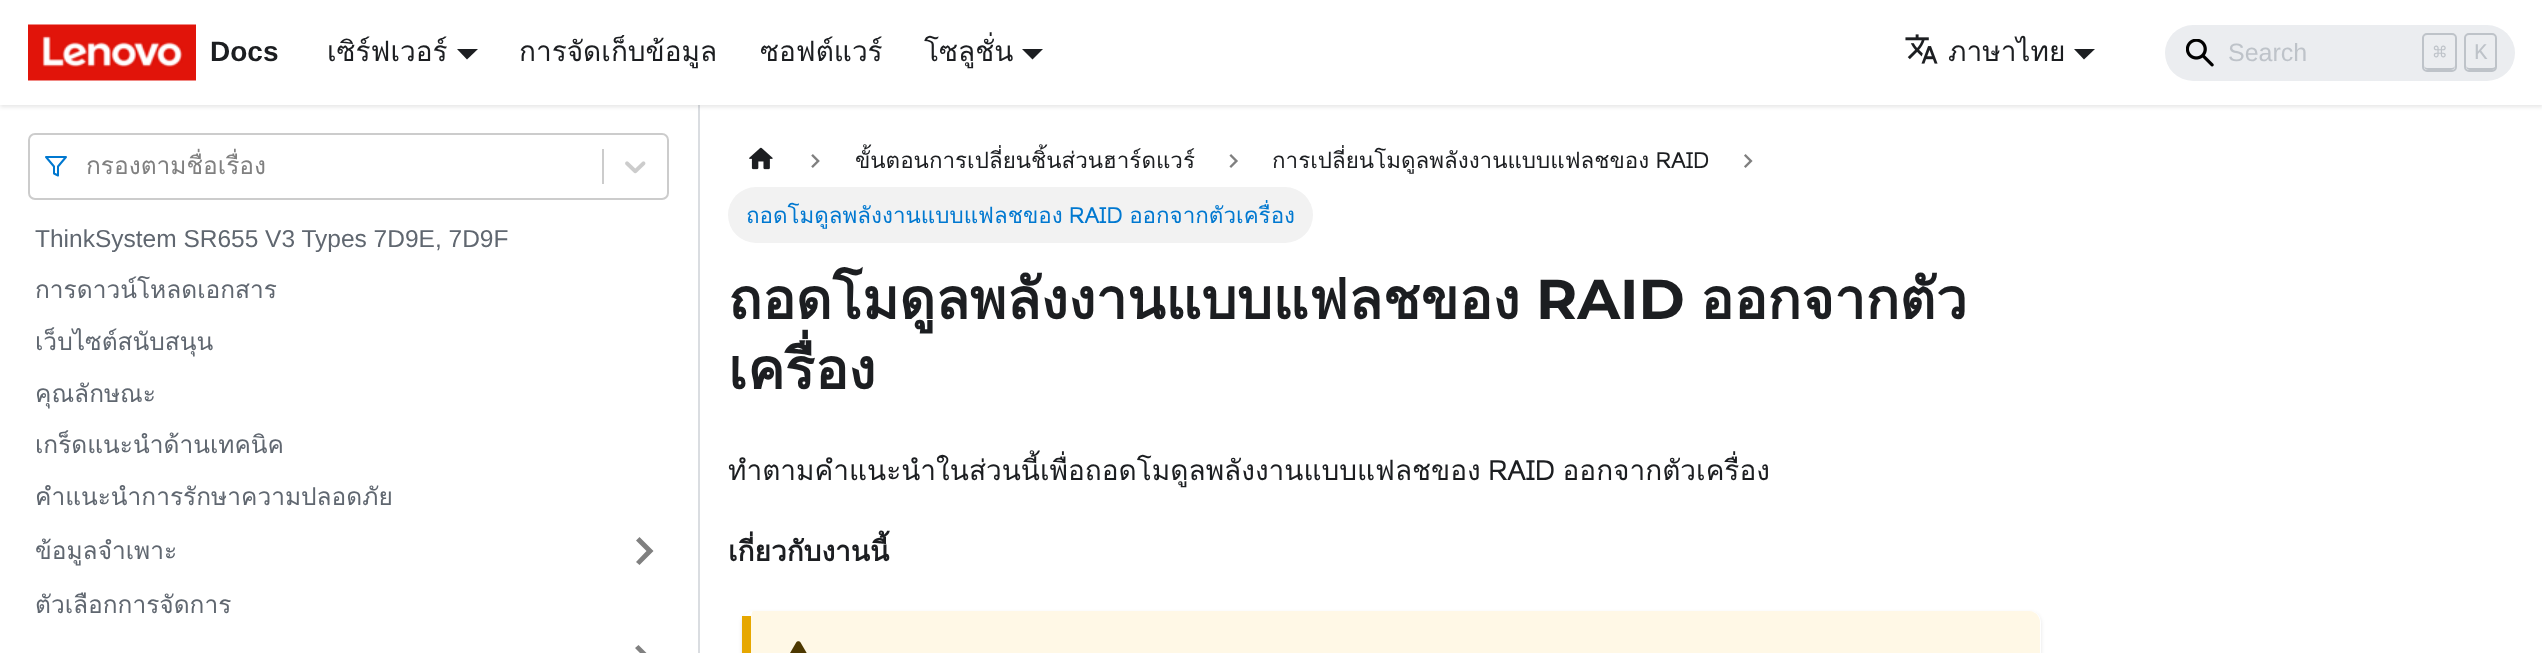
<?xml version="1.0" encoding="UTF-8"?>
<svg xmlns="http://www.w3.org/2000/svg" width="2542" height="653">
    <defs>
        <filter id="blur1" x="-50%" y="-200%" width="200%" height="500%"><feGaussianBlur stdDeviation="2"/></filter>
        <clipPath id="clip1"><path d="M 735 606 H 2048 V 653 H 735 Z M 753 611 H 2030 C 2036 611 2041 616 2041 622 V 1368 C 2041 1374 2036 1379 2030 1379 H 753 C 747 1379 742 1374 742 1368 V 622 C 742 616 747 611 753 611 Z" clip-rule="evenodd"/></clipPath>
    </defs>
    <rect width="100%" height="100%" fill="#FFFFFF"/>
    <rect x="698" y="105" width="2" height="548" fill="#DADDE1"/>
    <rect x="0" y="2" width="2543" height="105" fill="#000000" fill-opacity="0.1" filter="url(#blur1)"/>
    <rect x="0" y="0" width="2542" height="105" fill="#FFFFFF"/>
    <image x="28" y="24" width="168" height="57" href="img_01.png"/>
    <text x="210" y="61" font-family="Liberation Sans" font-size="28" font-weight="700" fill="#1C1E21">Docs</text>
    <text x="327" y="61" font-family="Loma" font-size="28" fill="#1C1E21">เซิร์ฟเวอร์</text>
    <path d="M 457 49 H 478 L 467 59.5 Z" fill="#1C1E21"/>
    <text x="519" y="61" font-family="Loma" font-size="28" fill="#1C1E21">การจัดเก็บข้อมูล</text>
    <text x="760" y="61" font-family="Loma" font-size="28" fill="#1C1E21">ซอฟต์แวร์</text>
    <text x="924" y="61" font-family="Loma" font-size="28" fill="#1C1E21">โซลูชั่น</text>
    <path d="M 1022 49 H 1043 L 1032.5 59.5 Z" fill="#1C1E21"/>
    <image x="1905" y="34" width="33" height="30" href="img_02.png"/>
    <text x="1948" y="61" font-family="Loma" font-size="28" fill="#1C1E21">ภาษาไทย</text>
    <path d="M 2074 49 H 2095 L 2084 59.5 Z" fill="#1C1E21"/>
    <rect x="2165" y="25" width="350" height="56" rx="28" fill="#EBEDF0"/>
    <image x="2186" y="39" width="28" height="28" href="img_03.png"/>
    <text x="2228" y="61" font-family="Liberation Sans" font-size="25" fill="#BEC3C9">Search</text>
    <path d="M 2424 64 C 2424 70 2426 70 2432 70 H 2447 C 2453 70 2455 70 2455 64 C 2455 67 2454 68 2451 68 H 2428 C 2425 68 2424 67 2424 64 Z" fill="#BEC3C9"/>
    <rect x="2423" y="34" width="33" height="37" rx="4" fill="none" stroke="#BEC3C9" stroke-width="2"/>
    <text x="2433" y="60" font-family="DejaVu Sans Mono" font-size="22.4" fill="#BEC3C9">⌘</text>
    <path d="M 2466 64 C 2466 70 2468 70 2473.5 70 H 2488.5 C 2494 70 2496 70 2496 64 C 2496 67 2494 68 2492 68 H 2470 C 2467 68 2466 67 2466 64 Z" fill="#BEC3C9"/>
    <rect x="2465" y="34" width="31" height="37" rx="4" fill="none" stroke="#BEC3C9" stroke-width="2"/>
    <text x="2474" y="59" font-family="Liberation Mono" font-size="22.4" fill="#BEC3C9">K</text>
    <rect x="29" y="134" width="639" height="65" rx="6" fill="none" stroke="#CCCCCC" stroke-width="2"/>
    <path d="M 66 157 H 46 L 54 166.5 V 173.5 L 58 175.5 V 166.5 Z" fill="none" stroke="#0078D0" stroke-width="2" stroke-linecap="round" stroke-linejoin="round"/>
    <text x="86" y="174" font-family="Loma" font-size="24.5" fill="#808080">กรองตามชื่อเรื่อง</text>
    <rect x="602" y="149" width="2" height="35" fill="#CCCCCC"/>
    <image x="625" y="161" width="21" height="13" href="img_04.png"/>
    <text x="35" y="247" font-family="Liberation Sans" font-size="24.5" fill="#606770">ThinkSystem SR655 V3 Types 7D9E, 7D9F</text>
    <text x="35" y="298" font-family="Loma" font-size="24.5" fill="#606770">การดาวน์โหลดเอกสาร</text>
    <text x="35" y="350" font-family="Loma" font-size="24.5" fill="#606770">เว็บไซต์สนับสนุน</text>
    <text x="35" y="402" font-family="Loma" font-size="24.5" fill="#606770">คุณลักษณะ</text>
    <text x="35" y="453" font-family="Loma" font-size="24.5" fill="#606770">เกร็ดแนะนำด้านเทคนิค</text>
    <text x="35" y="505" font-family="Loma" font-size="24.5" fill="#606770">คำแนะนำการรักษาความปลอดภัย</text>
    <text x="35" y="559" font-family="Loma" font-size="24.5" fill="#606770">ข้อมูลจำเพาะ</text>
    <path d="M 636 540.5 L 646.5 551 L 636 562 L 639.5 565 L 653.5 551 L 639.5 537 Z" fill="#808080"/>
    <text x="35" y="613" font-family="Loma" font-size="24.5" fill="#606770">ตัวเลือกการจัดการ</text>
    <path d="M 635 648 L 646 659 L 635 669.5 L 638.5 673 L 652.5 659 L 638.5 645 Z" fill="#808080"/>
    <image x="749" y="147" width="24" height="23" href="img_05.png"/>
    <image x="811" y="154" width="9" height="14" href="img_06.png"/>
    <text x="855" y="168" font-family="Loma" font-size="22.4" fill="#1C1E21">ขั้นตอนการเปลี่ยนชิ้นส่วนฮาร์ดแวร์</text>
    <image x="1229" y="154" width="9" height="14" href="img_07.png"/>
    <text x="1272" y="168" word-spacing="-1" font-family="Loma" font-size="22.4" fill="#1C1E21">การเปลี่ยนโมดูลพลังงานแบบแฟลชของ RAID</text>
    <image x="1744" y="154" width="9" height="14" href="img_08.png"/>
    <rect x="728" y="187" width="585" height="56" rx="28" fill="#F2F2F2"/>
    <text x="746" y="223" word-spacing="-1" font-family="Loma" font-size="22.4" fill="#0078D0">ถอดโมดูลพลังงานแบบแฟลชของ RAID ออกจากตัวเครื่อง</text>
    <text x="728" y="319" font-family="Loma" font-size="56" font-weight="700" fill="#1C1E21">ถอดโมดูลพลังงานแบบแฟลชของ</text>
    <text x="1536" y="319" font-family="Montserrat" font-size="56" font-weight="700" fill="#1C1E21">RAID</text>
    <text x="1700" y="319" font-family="Loma" font-size="56" font-weight="700" fill="#1C1E21">ออกจากตัว</text>
    <text x="728" y="389" font-family="Loma" font-size="56" font-weight="700" fill="#1C1E21">เครื่อง</text>
    <text x="728" y="480" word-spacing="-2" font-family="Loma" font-size="28" fill="#1C1E21">ทำตามคำแนะนำในส่วนนี้เพื่อถอดโมดูลพลังงานแบบแฟลชของ RAID ออกจากตัวเครื่อง</text>
    <text x="728" y="561" font-family="Loma" font-size="28" font-weight="700" fill="#1C1E21">เกี่ยวกับงานนี้</text>
    <g clip-path="url(#clip1)">
        <rect x="742" y="613" width="1299" height="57" rx="11" fill="#000000" fill-opacity="0.1" filter="url(#blur1)"/>
    </g>
    <path d="M 753 611 H 2029 C 2035 611 2040 616 2040 622 V 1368 C 2040 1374 2035 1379 2029 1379 H 753 C 752 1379 751 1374 751 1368 V 622 C 751 616 752 611 753 611 Z" fill="#FFF8E6"/>
    <rect x="742" y="616" width="9" height="37" fill="#E6A700"/>
    <image x="790" y="641" width="17" height="12" href="img_09.png"/>
</svg>
